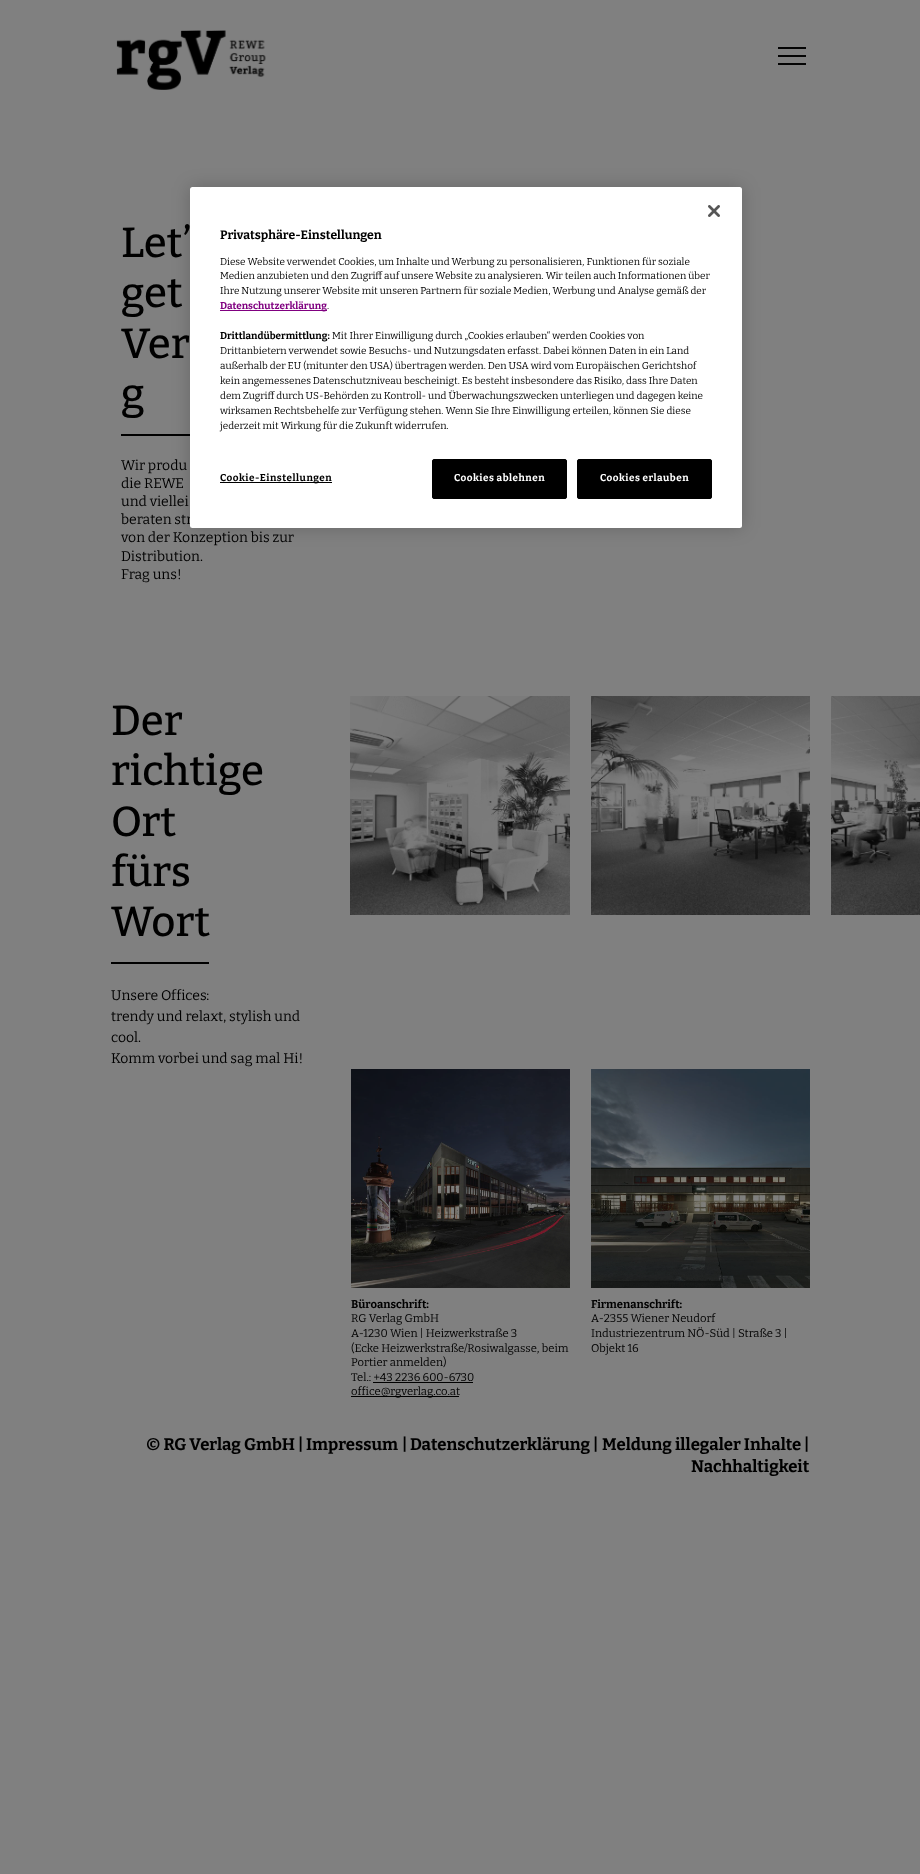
<?xml version="1.0" encoding="UTF-8"?>
<svg xmlns="http://www.w3.org/2000/svg" width="920" height="1874">
    <defs>
        <filter id="blur1" x="-50%" y="-200%" width="200%" height="500%"><feGaussianBlur stdDeviation="9"/></filter>
    </defs>
    <rect width="100%" height="100%" fill="#808080"/>
    <image x="116" y="30" width="150" height="60" href="img_01.png"/>
    <rect x="778" y="47" width="28" height="2" fill="#040404"/>
    <rect x="778" y="55" width="28" height="2" fill="#040404"/>
    <rect x="778" y="63" width="28" height="2" fill="#040404"/>
    <text font-family="Bitter" font-size="42" font-weight="100" fill="#000000">
        <tspan x="121" y="257">Let’</tspan>
        <tspan x="121" y="307">get</tspan>
        <tspan x="121" y="358">Ver</tspan>
        <tspan x="121" y="408">g</tspan>
    </text>
    <rect x="121" y="434" width="69" height="2" fill="#000000"/>
    <text font-family="'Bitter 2'" font-size="14" font-weight="100" fill="#000000">
        <tspan x="121" y="470">Wir produ</tspan>
        <tspan x="121" y="488">die REWE</tspan>
        <tspan x="121" y="506">und viellei</tspan>
        <tspan x="121" y="524">beraten str</tspan>
        <tspan x="121" y="542">von der Konzeption bis zur</tspan>
        <tspan x="121" y="561">Distribution.</tspan>
        <tspan x="121" y="579">Frag uns!</tspan>
    </text>
    <text font-family="Bitter" font-size="42" font-weight="100" fill="#000000">
        <tspan x="111" y="735">Der</tspan>
        <tspan x="111" y="785">richtige</tspan>
        <tspan x="111" y="836">Ort</tspan>
        <tspan x="111" y="886">fürs</tspan>
        <tspan x="111" y="936">Wort</tspan>
    </text>
    <rect x="111" y="962" width="98" height="2" fill="#000000"/>
    <text font-family="'Bitter 2'" font-size="14" font-weight="100" fill="#000000">
        <tspan x="111" y="1000">Unsere Offices:</tspan>
        <tspan x="111" y="1021">trendy und relaxt, stylish und</tspan>
        <tspan x="111" y="1042">cool.</tspan>
        <tspan x="111" y="1063">Komm vorbei und sag mal Hi!</tspan>
    </text>
    <image x="350" y="696" width="220" height="219" href="img_02.png"/>
    <image x="591" y="696" width="219" height="219" href="img_03.png"/>
    <image x="831" y="696" width="89" height="219" href="img_04.png"/>
    <image x="351" y="1069" width="219" height="219" href="img_05.png"/>
    <text x="351" y="1308" font-family="'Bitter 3'" font-size="11.25" font-weight="100" fill="#000000">Büroanschrift:</text>
    <text font-family="'Bitter 2'" font-size="11.25" font-weight="100" fill="#000000">
        <tspan x="351" y="1322">RG Verlag GmbH</tspan>
        <tspan x="351" y="1337">A-1230 Wien | Heizwerkstraße 3</tspan>
        <tspan x="351" y="1352">(Ecke Heizwerkstraße/Rosiwalgasse, beim</tspan>
        <tspan x="351" y="1366">Portier anmelden)</tspan>
        <tspan x="351" y="1381">Tel.: +43 2236 600-6730</tspan>
    </text>
    <rect x="373" y="1382" width="100" height="1" fill="#000000"/>
    <rect x="351" y="1396" width="108" height="1" fill="#000000"/>
    <text x="351" y="1395" font-family="'Bitter 2'" font-size="11.25" font-weight="100" fill="#000000">office@rgverlag.co.at</text>
    <image x="591" y="1069" width="219" height="219" href="img_06.png"/>
    <text x="591" y="1308" font-family="'Bitter 3'" font-size="11.25" font-weight="100" fill="#000000">Firmenanschrift:</text>
    <text font-family="'Bitter 2'" font-size="11.25" font-weight="100" fill="#000000">
        <tspan x="591" y="1322">A-2355 Wiener Neudorf</tspan>
        <tspan x="591" y="1337">Industriezentrum NÖ-Süd | Straße 3 |</tspan>
        <tspan x="591" y="1352">Objekt 16</tspan>
    </text>
    <text x="146" y="1450" font-family="'Bitter 3'" font-size="16.75" font-weight="100" fill="#000000">© RG Verlag GmbH |</text>
    <text x="306" y="1450" font-family="'Bitter 3'" font-size="16.75" font-weight="100" fill="#000000">Impressum</text>
    <text x="402" y="1450" font-family="'Bitter 3'" font-size="16.75" font-weight="100" fill="#000000">|</text>
    <text x="410" y="1450" font-family="'Bitter 3'" font-size="16.75" font-weight="100" fill="#000000">Datenschutzerklärung</text>
    <text x="593" y="1450" font-family="'Bitter 3'" font-size="16.75" font-weight="100" fill="#000000">|</text>
    <text x="602" y="1450" font-family="'Bitter 3'" font-size="16.75" font-weight="100" fill="#000000">Meldung illegaler Inhalte</text>
    <text x="804" y="1450" font-family="'Bitter 3'" font-size="16.75" font-weight="100" fill="#000000">|</text>
    <text x="691" y="1472" font-family="'Bitter 3'" font-size="16.75" font-weight="100" fill="#000000">Nachhaltigkeit</text>
    <rect x="190" y="187" width="552" height="341" rx="2.5" fill="#000000" fill-opacity="0.2" filter="url(#blur1)"/>
    <rect x="190" y="187" width="552" height="341" rx="2.5" fill="#FFFFFF"/>
    <image x="708" y="205" width="12" height="12" href="img_07.png"/>
    <text x="220" y="239" font-family="'Bitter 3'" font-size="12.25" font-weight="100" fill="#000000">Privatsphäre-Einstellungen</text>
    <text font-family="'Bitter 2'" font-size="9.95" font-weight="100" fill="#000000">
        <tspan x="220" y="265">Diese Website verwendet Cookies, um Inhalte und Werbung zu personalisieren, Funktionen für soziale</tspan>
        <tspan x="220" y="279">Medien anzubieten und den Zugriff auf unsere Website zu analysieren. Wir teilen auch Informationen über</tspan>
        <tspan x="220" y="294">Ihre Nutzung unserer Website mit unseren Partnern für soziale Medien, Werbung und Analyse gemäß der</tspan>
    </text>
    <rect x="220" y="310" width="107" height="1" fill="#800080"/>
    <text x="220" y="309" font-family="'Bitter 3'" font-size="9.95" font-weight="100" fill="#800080">Datenschutzerklärung</text>
    <text x="327" y="309" font-family="'Bitter 2'" font-size="9.95" font-weight="100" fill="#000000">.</text>
    <text x="220" y="339" font-family="'Bitter 3'" font-size="9.95" font-weight="100" fill="#000000">Drittlandübermittlung:</text>
    <text x="332" y="339" font-family="'Bitter 2'" font-size="9.95" font-weight="100" fill="#000000">Mit Ihrer Einwilligung durch „Cookies erlauben“ werden Cookies von</text>
    <text font-family="'Bitter 2'" font-size="9.95" font-weight="100" fill="#000000">
        <tspan x="220" y="354">Drittanbietern verwendet sowie Besuchs- und Nutzungsdaten erfasst. Dabei können Daten in ein Land</tspan>
        <tspan x="220" y="369">außerhalb der EU (mitunter den USA) übertragen werden. Den USA wird vom Europäischen Gerichtshof</tspan>
        <tspan x="220" y="384">kein angemessenes Datenschutzniveau bescheinigt. Es besteht insbesondere das Risiko, dass Ihre Daten</tspan>
        <tspan x="220" y="399">dem Zugriff durch US-Behörden zu Kontroll- und Überwachungszwecken unterliegen und dagegen keine</tspan>
        <tspan x="220" y="414">wirksamen Rechtsbehelfe zur Verfügung stehen. Wenn Sie Ihre Einwilligung erteilen, können Sie diese</tspan>
        <tspan x="220" y="429">jederzeit mit Wirkung für die Zukunft widerrufen.</tspan>
    </text>
    <rect x="220" y="482" width="112" height="1" fill="#000000"/>
    <text x="220" y="481" font-family="'Bitter 3'" font-size="9.95" font-weight="100" letter-spacing="0.5" fill="#000000">Cookie-Einstellungen</text>
    <rect x="432.5" y="459.5" width="134" height="39" rx="1.5" fill="#000000" stroke="#000000"/>
    <text x="454" y="481" font-family="'Bitter 3'" font-size="9.95" font-weight="100" letter-spacing="0.5" fill="#FFFFFF">Cookies ablehnen</text>
    <rect x="577.5" y="459.5" width="134" height="39" rx="1.5" fill="#000000" stroke="#000000"/>
    <text x="600" y="481" font-family="'Bitter 3'" font-size="9.95" font-weight="100" letter-spacing="0.5" fill="#FFFFFF">Cookies erlauben</text>
</svg>
